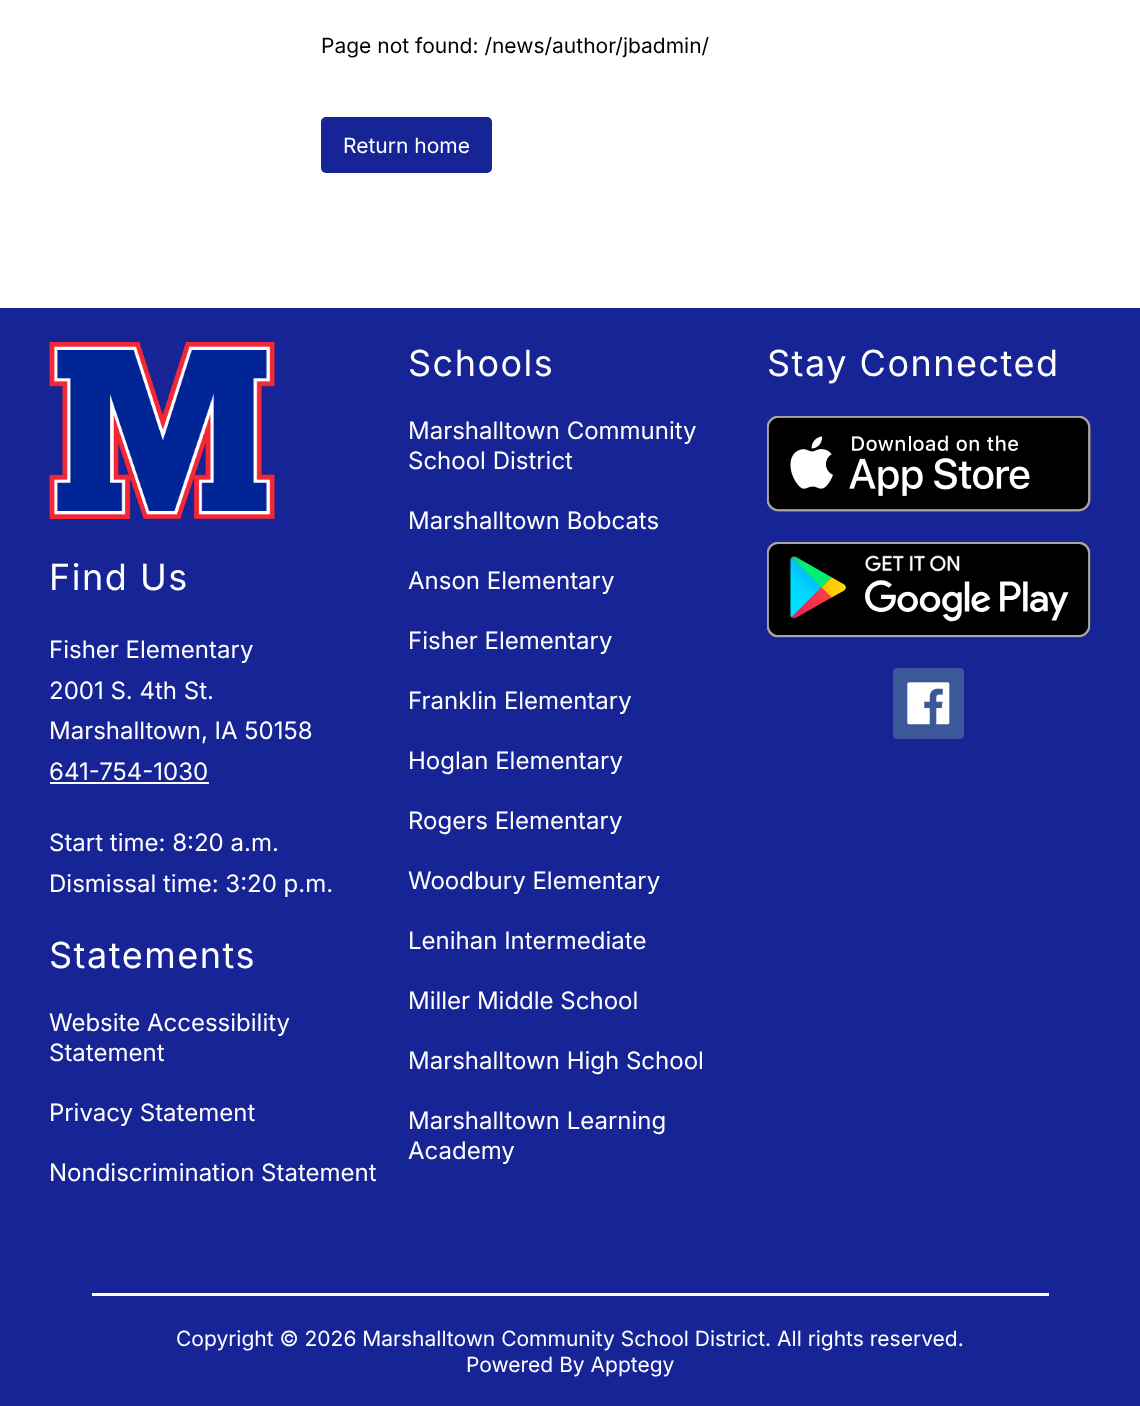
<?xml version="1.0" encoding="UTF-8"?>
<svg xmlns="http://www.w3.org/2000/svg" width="1140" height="1406">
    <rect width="100%" height="100%" fill="#FFFFFF"/>
    <text x="321" y="53" font-family="Inter" font-size="21" fill="#000000">Page not found: /news/author/jbadmin/</text>
    <rect x="321" y="117" width="171" height="56" rx="5" fill="#162496"/>
    <text x="343" y="153" font-family="Inter" font-size="21" fill="#FFFFFF">Return home</text>
    <rect x="0" y="308" width="1140" height="1098" fill="#162496"/>
    <text x="408" y="376" font-family="Inter" font-size="36" letter-spacing="1.5" fill="#FFFFFF">Schools</text>
    <text font-family="Inter" font-size="24" fill="#FFFFFF">
        <tspan x="408" y="439">Marshalltown Community</tspan>
        <tspan x="408" y="469">School District</tspan>
    </text>
    <text x="408" y="529" font-family="Inter" font-size="24" fill="#FFFFFF">Marshalltown Bobcats</text>
    <text x="408" y="589" font-family="Inter" font-size="24" fill="#FFFFFF">Anson Elementary</text>
    <text x="408" y="649" font-family="Inter" font-size="24" fill="#FFFFFF">Fisher Elementary</text>
    <text x="408" y="709" font-family="Inter" font-size="24" fill="#FFFFFF">Franklin Elementary</text>
    <text x="408" y="769" font-family="Inter" font-size="24" fill="#FFFFFF">Hoglan Elementary</text>
    <text x="408" y="829" font-family="Inter" font-size="24" fill="#FFFFFF">Rogers Elementary</text>
    <text x="408" y="889" font-family="Inter" font-size="24" fill="#FFFFFF">Woodbury Elementary</text>
    <text x="408" y="949" font-family="Inter" font-size="24" fill="#FFFFFF">Lenihan Intermediate</text>
    <text x="408" y="1009" font-family="Inter" font-size="24" fill="#FFFFFF">Miller Middle School</text>
    <text x="408" y="1069" font-family="Inter" font-size="24" fill="#FFFFFF">Marshalltown High School</text>
    <text font-family="Inter" font-size="24" fill="#FFFFFF">
        <tspan x="408" y="1129">Marshalltown Learning</tspan>
        <tspan x="408" y="1159">Academy</tspan>
    </text>
    <text x="767" y="376" font-family="Inter" font-size="36" letter-spacing="1.5" fill="#FFFFFF">Stay Connected</text>
    <image x="767" y="416" width="324" height="96" href="img_01.png"/>
    <image x="767" y="542" width="324" height="96" href="img_02.png"/>
    <image x="893" y="668" width="71" height="71" href="img_03.png"/>
    <image x="49" y="342" width="226" height="177" href="img_04.png"/>
    <text x="49" y="590" font-family="Inter" font-size="36" letter-spacing="1.5" fill="#FFFFFF">Find Us</text>
    <text font-family="Inter" font-size="24" fill="#FFFFFF">
        <tspan x="49" y="658">Fisher Elementary</tspan>
        <tspan x="49" y="699">2001 S. 4th St.</tspan>
        <tspan x="49" y="739">Marshalltown, IA 50158</tspan>
        <tspan x="49" y="780">641-754-1030</tspan>
    </text>
    <rect x="50" y="782" width="159" height="2" fill="#FFFFFF"/>
    <text font-family="Inter" font-size="24" fill="#FFFFFF">
        <tspan x="49" y="851">Start time: 8:20 a.m.</tspan>
        <tspan x="49" y="892">Dismissal time: 3:20 p.m.</tspan>
    </text>
    <text x="49" y="968" font-family="Inter" font-size="36" letter-spacing="1.5" fill="#FFFFFF">Statements</text>
    <text font-family="Inter" font-size="24" fill="#FFFFFF">
        <tspan x="49" y="1031">Website Accessibility</tspan>
        <tspan x="49" y="1061">Statement</tspan>
    </text>
    <text x="49" y="1121" font-family="Inter" font-size="24" fill="#FFFFFF">Privacy Statement</text>
    <text x="49" y="1181" font-family="Inter" font-size="24" fill="#FFFFFF">Nondiscrimination Statement</text>
    <rect x="92" y="1293" width="957" height="3" fill="#FFFFFF"/>
    <text x="176" y="1346" font-family="Inter" font-size="21" fill="#FFFFFF">Copyright © 2026 Marshalltown Community School District. All rights reserved.</text>
    <text x="466" y="1372" font-family="Inter" font-size="21" fill="#FFFFFF">Powered By Apptegy</text>
</svg>
